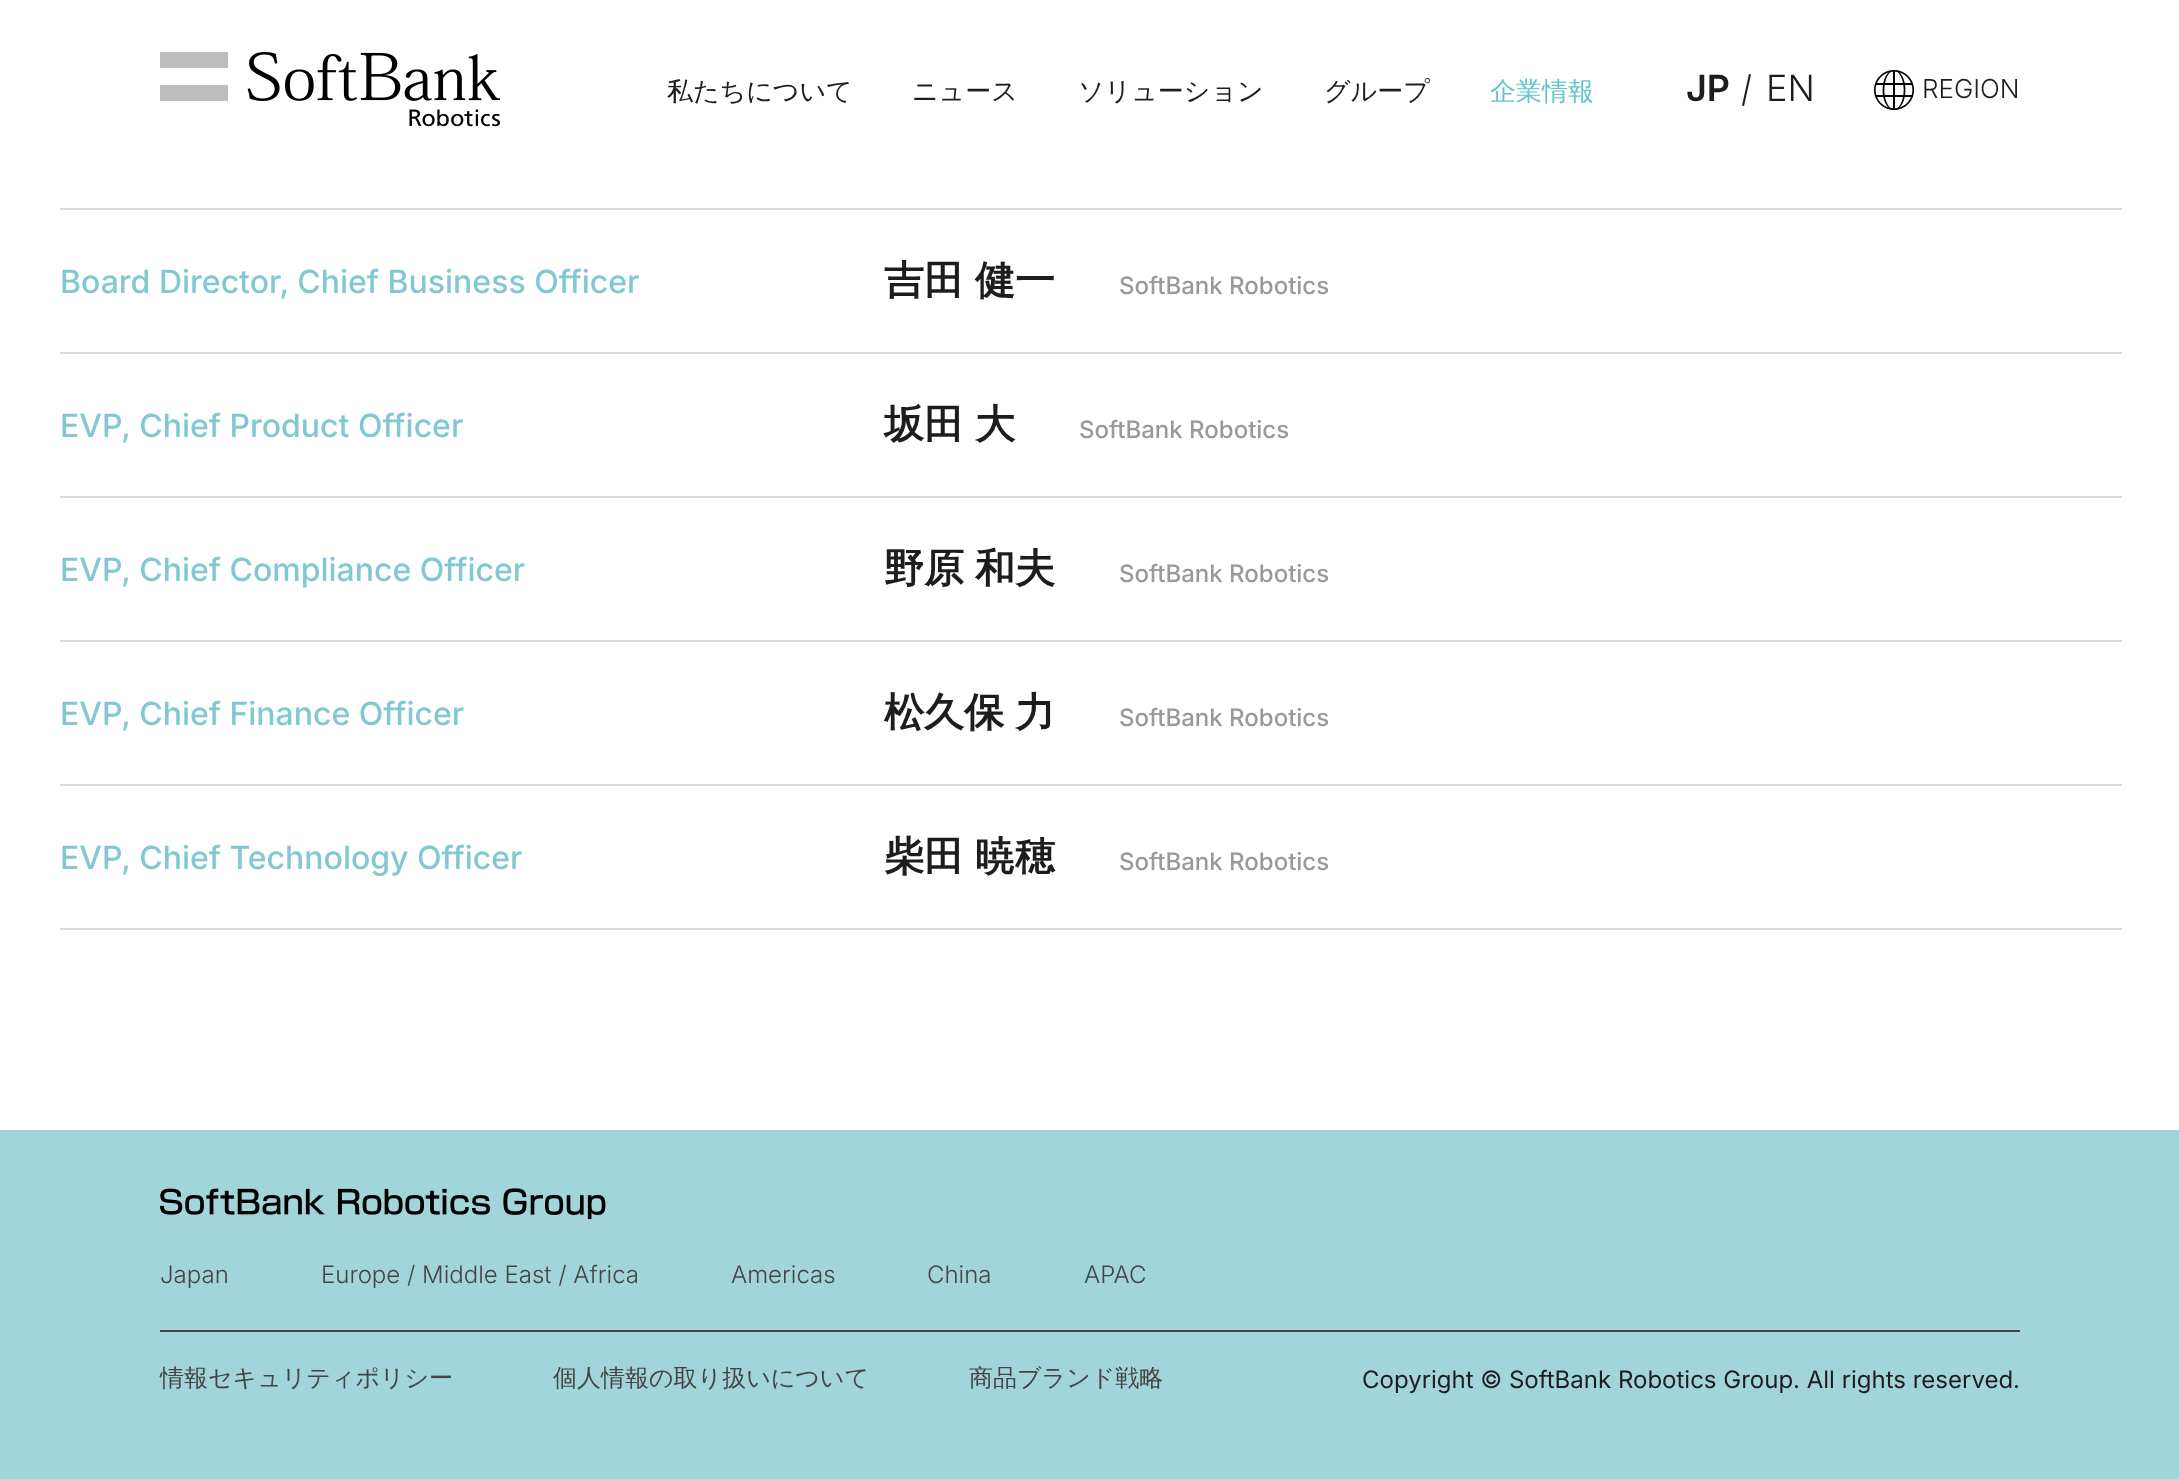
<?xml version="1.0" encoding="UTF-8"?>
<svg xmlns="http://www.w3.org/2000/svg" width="2179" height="1479">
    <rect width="100%" height="100%" fill="#FFFFFF"/>
    <image x="160" y="52" width="340" height="75" href="img_01.png"/>
    <text x="667" y="100" font-family="WenQuanYi Zen Hei" font-size="26" font-weight="500" fill="#1D1D1F">私たちについて</text>
    <text x="912" y="100" font-family="WenQuanYi Zen Hei" font-size="26" font-weight="500" fill="#1D1D1F">ニュース</text>
    <text x="1078" y="100" font-family="WenQuanYi Zen Hei" font-size="26" font-weight="500" fill="#1D1D1F">ソリューション</text>
    <text x="1324" y="100" font-family="WenQuanYi Zen Hei" font-size="26" font-weight="500" fill="#1D1D1F">グループ</text>
    <text x="1490" y="100" font-family="WenQuanYi Zen Hei" font-size="26" font-weight="500" fill="#61C4CF">企業情報</text>
    <text x="1686" y="101" font-family="Inter" font-size="36" font-weight="600" fill="#1D1D1F">JP</text>
    <path d="M 1749 74 L 1751 74.5 L 1744 106 L 1742 105.5 Z" fill="#1D1D1F"/>
    <text x="1766" y="101" font-family="Inter" font-size="36" font-weight="300" fill="#1D1D1F">EN</text>
    <image x="1874" y="70" width="40" height="40" href="img_02.png"/>
    <text x="1922" y="98" font-family="Inter" font-size="26" font-weight="300" fill="#1D1D1F">REGION</text>
    <rect x="60" y="208" width="2062" height="2" fill="#D9D9D9"/>
    <text x="60" y="293" font-family="Inter" font-size="32" font-weight="500" fill="#82C8D2">Board Director, Chief Business Officer</text>
    <rect x="60" y="352" width="2062" height="2" fill="#D9D9D9"/>
    <text x="884" y="294" word-spacing="-1" font-family="WenQuanYi Zen Hei" font-size="40" font-weight="700" fill="#1D1D1F">吉田 健一</text>
    <text x="1119" y="294" font-family="Inter" font-size="24" font-weight="500" fill="#999999">SoftBank Robotics</text>
    <text x="60" y="437" font-family="Inter" font-size="32" font-weight="500" fill="#82C8D2">EVP, Chief Product Officer</text>
    <rect x="60" y="496" width="2062" height="2" fill="#D9D9D9"/>
    <text x="884" y="438" word-spacing="-1" font-family="WenQuanYi Zen Hei" font-size="40" font-weight="700" fill="#1D1D1F">坂田 大</text>
    <text x="1079" y="438" font-family="Inter" font-size="24" font-weight="500" fill="#999999">SoftBank Robotics</text>
    <text x="60" y="581" font-family="Inter" font-size="32" font-weight="500" fill="#82C8D2">EVP, Chief Compliance Officer</text>
    <rect x="60" y="640" width="2062" height="2" fill="#D9D9D9"/>
    <text x="884" y="582" word-spacing="-1" font-family="WenQuanYi Zen Hei" font-size="40" font-weight="700" fill="#1D1D1F">野原 和夫</text>
    <text x="1119" y="582" font-family="Inter" font-size="24" font-weight="500" fill="#999999">SoftBank Robotics</text>
    <text x="60" y="725" font-family="Inter" font-size="32" font-weight="500" fill="#82C8D2">EVP, Chief Finance Officer</text>
    <rect x="60" y="784" width="2062" height="2" fill="#D9D9D9"/>
    <text x="884" y="726" word-spacing="-1" font-family="WenQuanYi Zen Hei" font-size="40" font-weight="700" fill="#1D1D1F">松久保 力</text>
    <text x="1119" y="726" font-family="Inter" font-size="24" font-weight="500" fill="#999999">SoftBank Robotics</text>
    <text x="60" y="869" font-family="Inter" font-size="32" font-weight="500" fill="#82C8D2">EVP, Chief Technology Officer</text>
    <rect x="60" y="928" width="2062" height="2" fill="#D9D9D9"/>
    <text x="884" y="870" word-spacing="-1" font-family="WenQuanYi Zen Hei" font-size="40" font-weight="700" fill="#1D1D1F">柴田 暁穂</text>
    <text x="1119" y="870" font-family="Inter" font-size="24" font-weight="500" fill="#999999">SoftBank Robotics</text>
    <rect x="0" y="1130" width="2179" height="349" fill="#A2D5DB"/>
    <image x="160" y="1188" width="446" height="32" href="img_03.png"/>
    <text x="160" y="1283" font-family="Inter" font-size="24" font-weight="300" fill="#444444">Japan</text>
    <text x="321" y="1283" font-family="Inter" font-size="24" font-weight="300" fill="#444444">Europe / Middle East / Africa</text>
    <text x="731" y="1283" font-family="Inter" font-size="24" font-weight="300" fill="#444444">Americas</text>
    <text x="927" y="1283" font-family="Inter" font-size="24" font-weight="300" fill="#444444">China</text>
    <text x="1084" y="1283" font-family="Inter" font-size="24" font-weight="300" fill="#444444">APAC</text>
    <rect x="160" y="1330" width="1860" height="2" fill="#454545"/>
    <text x="160" y="1386" font-family="WenQuanYi Zen Hei" font-size="24" font-weight="500" fill="#444444">情報セキュリティポリシー</text>
    <text x="553" y="1386" font-family="WenQuanYi Zen Hei" font-size="24" font-weight="500" fill="#444444">個人情報の取り扱いについて</text>
    <text x="969" y="1386" font-family="WenQuanYi Zen Hei" font-size="24" font-weight="500" fill="#444444">商品ブランド戦略</text>
    <text x="1362" y="1388" font-family="Inter" font-size="24" fill="#1D1D1F">Copyright © SoftBank Robotics Group. All rights reserved.</text>
</svg>
